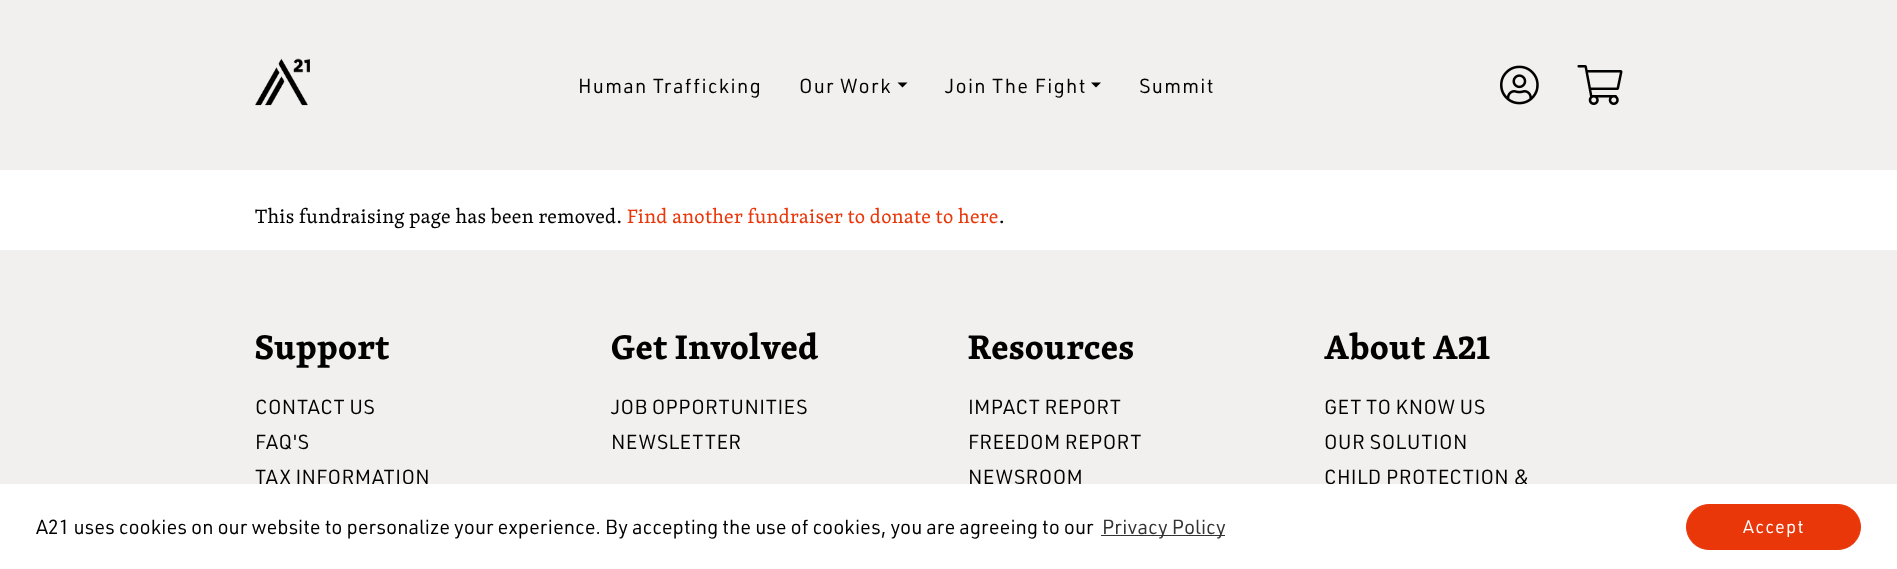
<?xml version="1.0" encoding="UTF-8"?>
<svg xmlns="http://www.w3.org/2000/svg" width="1897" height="569">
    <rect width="100%" height="100%" fill="#FFFFFF"/>
    <rect x="0" y="0" width="1897" height="170" fill="#F2F0EE"/>
    <image x="255" y="58" width="55" height="48" href="img_01.png"/>
    <text x="578" y="93" font-family="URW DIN" font-size="20" letter-spacing="1.25" fill="#000000">Human Trafficking</text>
    <text x="799" y="93" font-family="URW DIN" font-size="20" letter-spacing="1.25" fill="#000000">Our Work</text>
    <path d="M 897.5 82.5 H 907.5 L 902.5 87.5 Z" fill="#000000"/>
    <text x="945" y="93" font-family="URW DIN" font-size="20" letter-spacing="1.25" fill="#000000">Join The Fight</text>
    <path d="M 1091 82.5 H 1101 L 1096 87.5 Z" fill="#000000"/>
    <text x="1139" y="93" font-family="URW DIN" font-size="20" letter-spacing="1.25" fill="#000000">Summit</text>
    <image x="1500" y="65" width="39" height="40" href="img_02.png"/>
    <image x="1577" y="65" width="46" height="40" href="img_03.png"/>
    <text x="255" y="223" font-family="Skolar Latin" font-size="20" letter-spacing="0.3" fill="#000000">This fundraising page has been removed.</text>
    <text x="627" y="223" font-family="Skolar Latin" font-size="20" letter-spacing="0.3" fill="#E9370A">Find another fundraiser to donate to here</text>
    <text x="999" y="223" font-family="Skolar Latin" font-size="20" letter-spacing="0.3" fill="#000000">.</text>
    <rect x="0" y="250" width="1897" height="234" fill="#F2F0EE"/>
    <text x="255" y="359" font-family="Skolar Latin" font-size="35" font-weight="700" letter-spacing="0.3" fill="#000000">Support</text>
    <text font-family="URW DIN" font-size="20" letter-spacing="0.3" fill="#000000">
        <tspan x="255" y="414">CONTACT US</tspan>
        <tspan x="255" y="449">FAQ'S</tspan>
        <tspan x="255" y="484">TAX INFORMATION</tspan>
    </text>
    <text x="611" y="359" font-family="Skolar Latin" font-size="35" font-weight="700" letter-spacing="0.3" fill="#000000">Get Involved</text>
    <text font-family="URW DIN" font-size="20" letter-spacing="0.3" fill="#000000">
        <tspan x="611" y="414">JOB OPPORTUNITIES</tspan>
        <tspan x="611" y="449">NEWSLETTER</tspan>
    </text>
    <text x="968" y="359" font-family="Skolar Latin" font-size="35" font-weight="700" letter-spacing="0.3" fill="#000000">Resources</text>
    <text font-family="URW DIN" font-size="20" letter-spacing="0.3" fill="#000000">
        <tspan x="968" y="414">IMPACT REPORT</tspan>
        <tspan x="968" y="449">FREEDOM REPORT</tspan>
        <tspan x="968" y="484">NEWSROOM</tspan>
    </text>
    <text x="1324" y="359" font-family="Skolar Latin" font-size="35" font-weight="700" letter-spacing="0.3" fill="#000000">About A21</text>
    <text font-family="URW DIN" font-size="20" letter-spacing="0.3" fill="#000000">
        <tspan x="1324" y="414">GET TO KNOW US</tspan>
        <tspan x="1324" y="449">OUR SOLUTION</tspan>
        <tspan x="1324" y="484">CHILD PROTECTION &amp;</tspan>
    </text>
    <rect x="333" y="484" width="1189" height="1" fill="#FFFFFF"/>
    <text x="36" y="534" font-family="URW DIN" font-size="20" fill="#000000">A21 uses cookies on our website to personalize your experience. By accepting the use of cookies, you are agreeing to our</text>
    <rect x="1101" y="535" width="124" height="1" fill="#333333"/>
    <text x="1102" y="534" font-family="URW DIN" font-size="20" fill="#333333">Privacy Policy</text>
    <rect x="1686.5" y="504.5" width="174" height="45" rx="22.5" fill="#E9370A" stroke="#E9370A"/>
    <text x="1743" y="533" font-family="URW DIN" font-size="18" letter-spacing="1.25" fill="#FFFFFF">Accept</text>
</svg>
